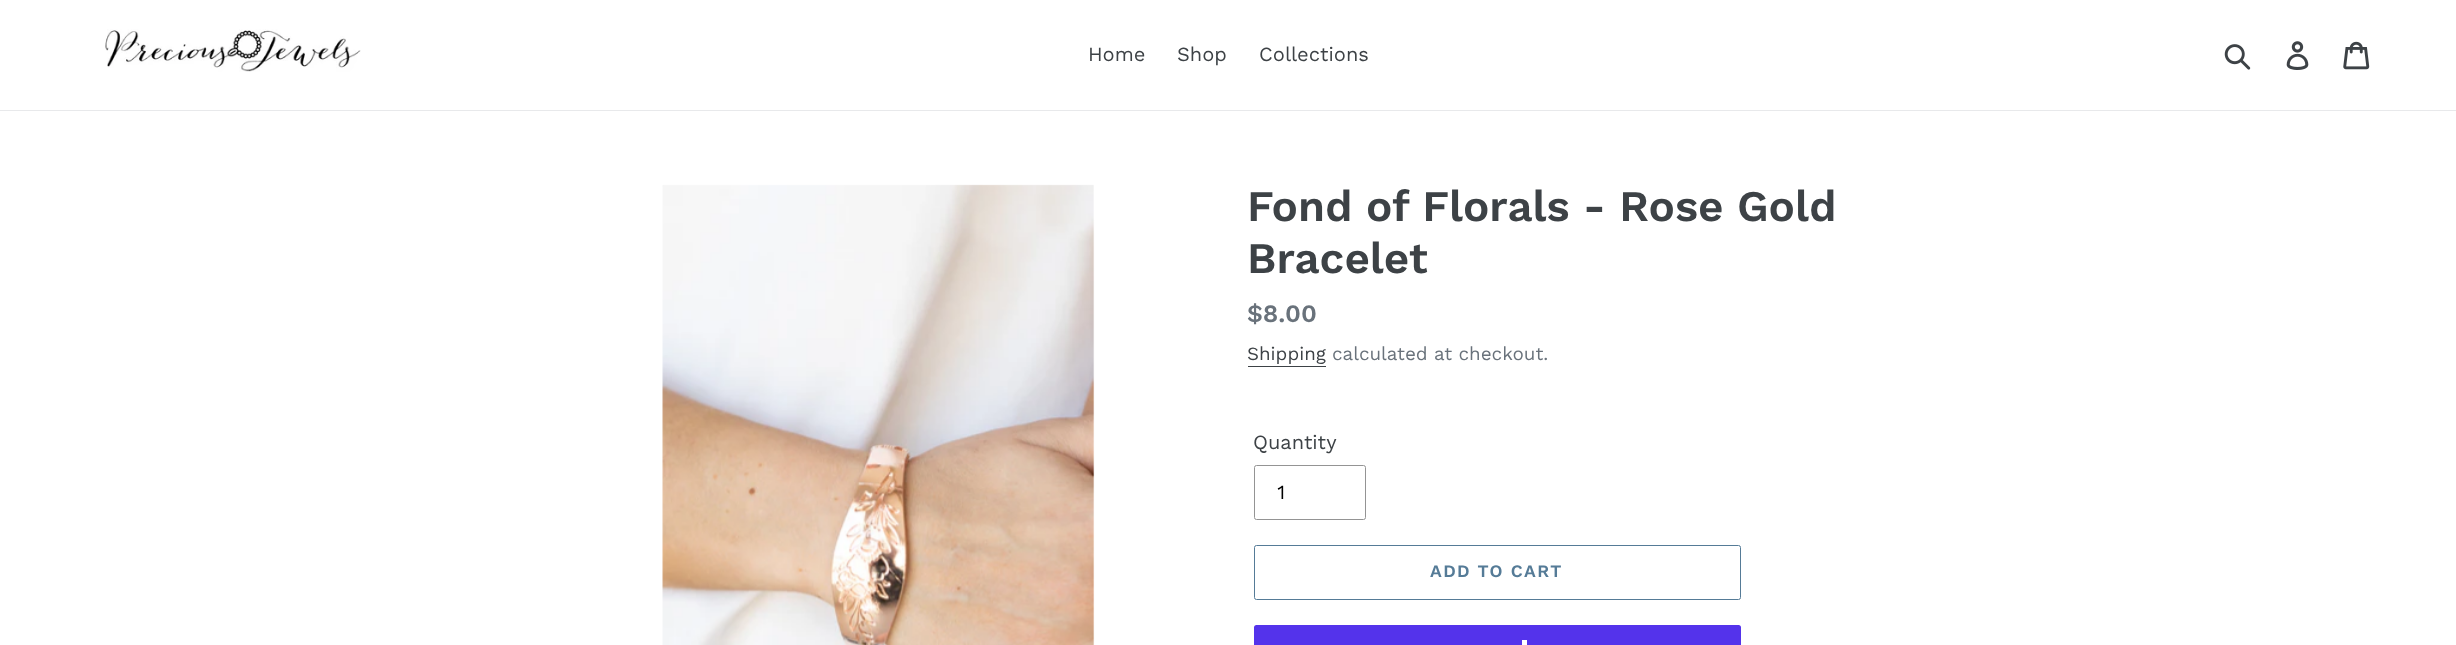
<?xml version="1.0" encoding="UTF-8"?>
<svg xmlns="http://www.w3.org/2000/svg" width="2456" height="645">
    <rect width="100%" height="100%" fill="#FFFFFF"/>
    <rect x="0" y="110" width="2456" height="1" fill="#E8E9EB"/>
    <image x="105" y="29" width="256" height="43" href="img_01.png"/>
    <text x="1088" y="61" font-family="Work Sans" font-size="20" fill="#3D4246">Home</text>
    <text x="1177" y="61" font-family="Work Sans" font-size="20" fill="#3D4246">Shop</text>
    <text x="1259" y="61" font-family="Work Sans" font-size="20" fill="#3D4246">Collections</text>
    <image x="2224" y="44" width="27" height="26" href="img_02.png"/>
    <image x="2286" y="41" width="23" height="29" href="img_03.png"/>
    <image x="2343" y="41" width="27" height="29" href="img_04.png"/>
    <image x="662" y="184" width="433" height="461" href="img_05.png"/>
    <text font-family="Work Sans" font-size="43.75" font-weight="600" fill="#3D4246">
        <tspan x="1247" y="221">Fond of Florals - Rose Gold</tspan>
        <tspan x="1247" y="273">Bracelet</tspan>
    </text>
    <text x="1247" y="322" font-family="Work Sans" font-size="25" font-weight="600" fill="#69727B">$8.00</text>
    <text x="1247" y="360" font-family="Work Sans" font-size="18.75" fill="#3D4246">Shipping</text>
    <rect x="1248" y="366" width="78" height="1" fill="#3D4246"/>
    <text x="1332" y="360" font-family="Work Sans" font-size="18.75" fill="#69727B">calculated at checkout.</text>
    <text x="1253" y="449" font-family="Work Sans" font-size="20" fill="#3D4246">Quantity</text>
    <rect x="1254.5" y="465.5" width="111" height="54" rx="2" fill="none" stroke="#949494"/>
    <text x="1277" y="499" font-family="Work Sans" font-size="20" fill="#000000">1</text>
    <rect x="1254.5" y="545.5" width="486" height="54" rx="2" fill="none" stroke="#557B97"/>
    <text x="1430" y="577" font-family="Work Sans" font-size="17.5" font-weight="600" letter-spacing="1.4" fill="#557B97">ADD TO CART</text>
    <rect x="1254" y="625" width="487" height="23" rx="2.5" fill="#5433EB"/>
    <rect x="1522" y="640" width="5" height="5" fill="#FFFFFF"/>
</svg>
